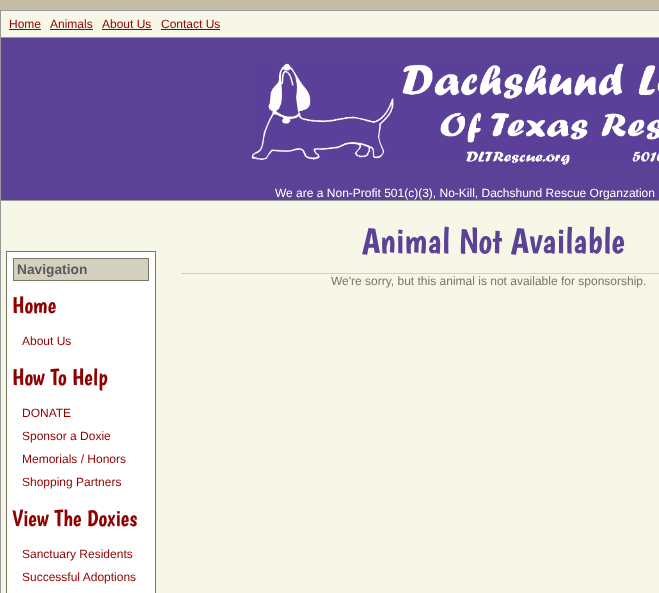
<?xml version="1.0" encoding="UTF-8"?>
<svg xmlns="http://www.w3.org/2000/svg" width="659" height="593">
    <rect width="100%" height="100%" fill="#C2BDA3"/>
    <rect x="0.5" y="10.5" width="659" height="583" fill="#F6F7E7" stroke="#999999"/>
    <text x="9" y="28" font-family="Liberation Sans" font-size="12" fill="#910000">Home</text>
    <rect x="9" y="29" width="32" height="1" fill="#910000"/>
    <text x="50" y="28" font-family="Liberation Sans" font-size="12" fill="#910000">Animals</text>
    <rect x="50" y="29" width="43" height="1" fill="#910000"/>
    <text x="102" y="28" font-family="Liberation Sans" font-size="12" fill="#910000">About Us</text>
    <rect x="102" y="29" width="50" height="1" fill="#910000"/>
    <text x="161" y="28" font-family="Liberation Sans" font-size="12" fill="#910000">Contact Us</text>
    <rect x="161" y="29" width="59" height="1" fill="#910000"/>
    <rect x="1" y="38" width="658" height="162" fill="#5B4297"/>
    <rect x="1" y="37" width="658" height="1" fill="#999999"/>
    <rect x="1" y="200" width="658" height="1" fill="#999999"/>
    <image x="251" y="63" width="408" height="102" href="img_01.png"/>
    <text x="275" y="197" font-family="Liberation Sans" font-size="12" fill="#FFFFFF">We are a Non-Profit 501(c)(3), No-Kill, Dachshund Rescue Organzation</text>
    <rect x="181" y="273" width="478" height="1" fill="#D3D0BE"/>
    <text x="362" y="253" font-family="Boogaloo" font-size="36" fill="#5B4297">Animal Not Available</text>
    <text x="331" y="285" font-family="Liberation Sans" font-size="12" fill="#797765">We're sorry, but this animal is not available for sponsorship.</text>
    <rect x="6.5" y="251.5" width="149" height="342" fill="#FFFFFF" stroke="#797765"/>
    <rect x="13.5" y="258.5" width="135" height="22" fill="#D3D0BE" stroke="#797765"/>
    <text x="17" y="274" font-family="Liberation Sans" font-size="13.75" font-weight="700" fill="#5B5B5B">Navigation</text>
    <text x="12" y="313" font-family="Boogaloo" font-size="23" fill="#910000">Home</text>
    <text x="22" y="345" font-family="Liberation Sans" font-size="12" fill="#910000">About Us</text>
    <text x="12" y="385" font-family="Boogaloo" font-size="23" fill="#910000">How To Help</text>
    <text font-family="Liberation Sans" font-size="12" fill="#910000">
        <tspan x="22" y="417">DONATE</tspan>
        <tspan x="22" y="440">Sponsor a Doxie</tspan>
        <tspan x="22" y="463">Memorials / Honors</tspan>
        <tspan x="22" y="486">Shopping Partners</tspan>
    </text>
    <text x="12" y="526" font-family="Boogaloo" font-size="23" fill="#910000">View The Doxies</text>
    <text font-family="Liberation Sans" font-size="12" fill="#910000">
        <tspan x="22" y="558">Sanctuary Residents</tspan>
        <tspan x="22" y="581">Successful Adoptions</tspan>
    </text>
</svg>
